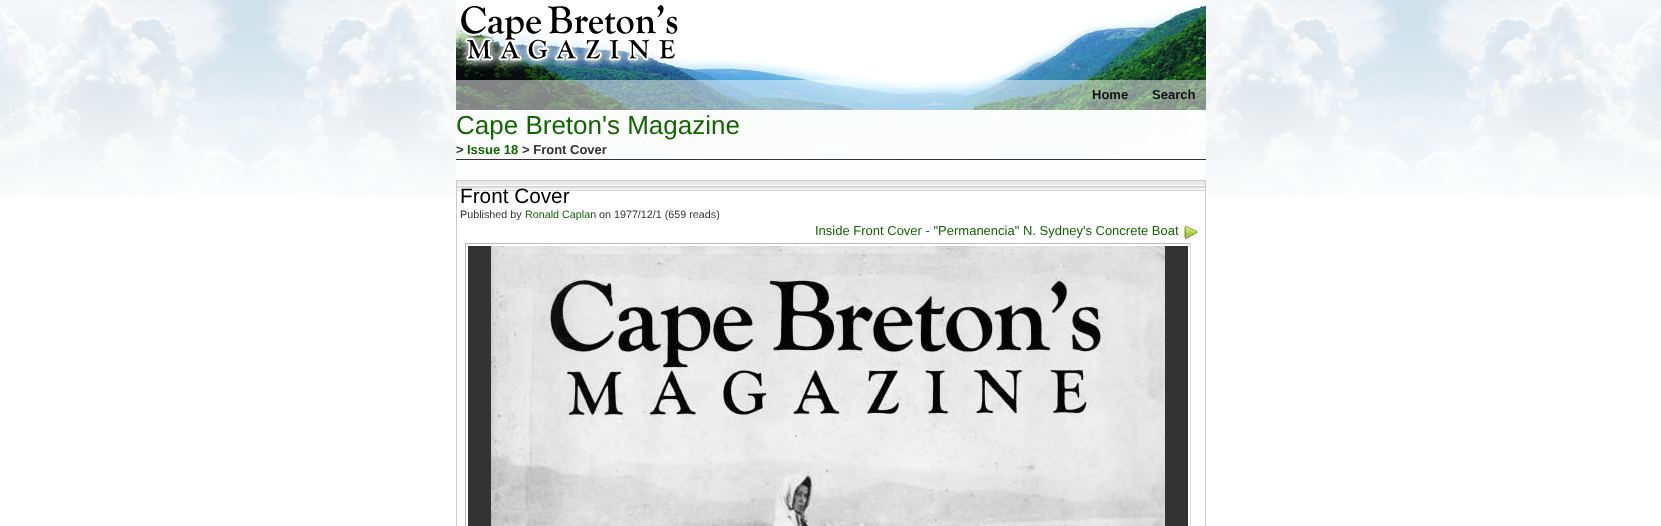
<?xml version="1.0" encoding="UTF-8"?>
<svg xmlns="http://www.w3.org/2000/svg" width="1661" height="526">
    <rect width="100%" height="100%" fill="#FFFFFF"/>
    <image x="0" y="0" width="1661" height="198" href="img_01.png"/>
    <image x="456" y="0" width="750" height="80" href="img_02.png"/>
    <image x="456" y="80" width="750" height="30" href="img_03.png"/>
    <text x="1092" y="99" font-family="Liberation Sans" font-size="13" font-weight="700" fill="#111111">Home</text>
    <text x="1152" y="99" font-family="Liberation Sans" font-size="13" font-weight="700" fill="#111111">Search</text>
    <rect x="456" y="110" width="750" height="70" fill="#FEFEFE" fill-opacity="0.85"/>
    <rect x="456" y="159" width="750" height="1" fill="#333333"/>
    <text x="456" y="134" font-family="Liberation Sans" font-size="26" fill="#116600">Cape Breton's Magazine</text>
    <text x="456" y="154" font-family="Liberation Sans" font-size="13" font-weight="700" fill="#333333">&gt;</text>
    <text x="467" y="154" font-family="Liberation Sans" font-size="13" font-weight="700" fill="#116600">Issue 18</text>
    <text x="522" y="154" font-family="Liberation Sans" font-size="13" font-weight="700" fill="#333333">&gt; Front Cover</text>
    <rect x="457" y="191" width="748" height="7" fill="#FFFFFF"/>
    <image x="457" y="181" width="748" height="10" href="img_04.png"/>
    <rect x="456.5" y="180.5" width="749" height="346" fill="none" stroke="#CCCACA"/>
    <text x="460" y="203" font-family="Liberation Sans" font-size="20.75" fill="#000000">Front Cover</text>
    <text x="460" y="218" font-family="Liberation Sans" font-size="10.75" fill="#333333">Published by</text>
    <text x="525" y="218" font-family="Liberation Sans" font-size="10.75" fill="#116600">Ronald Caplan</text>
    <text x="599" y="218" font-family="Liberation Sans" font-size="10.75" fill="#333333">on 1977/12/1 (659 reads)</text>
    <text x="815" y="235" font-family="Liberation Sans" font-size="13" fill="#116600">Inside Front Cover - "Permanencia" N. Sydney's Concrete Boat</text>
    <image x="1184" y="225" width="15" height="15" href="img_05.png"/>
    <rect x="465" y="243" width="726" height="1" fill="#BABABA"/>
    <rect x="1190" y="243" width="1" height="283" fill="#D8D8D8"/>
    <rect x="465" y="243" width="1" height="283" fill="#BABABA"/>
    <rect x="468" y="246" width="720" height="280" fill="#333333"/>
    <image x="491" y="246" width="674" height="280" href="img_06.png"/>
</svg>
